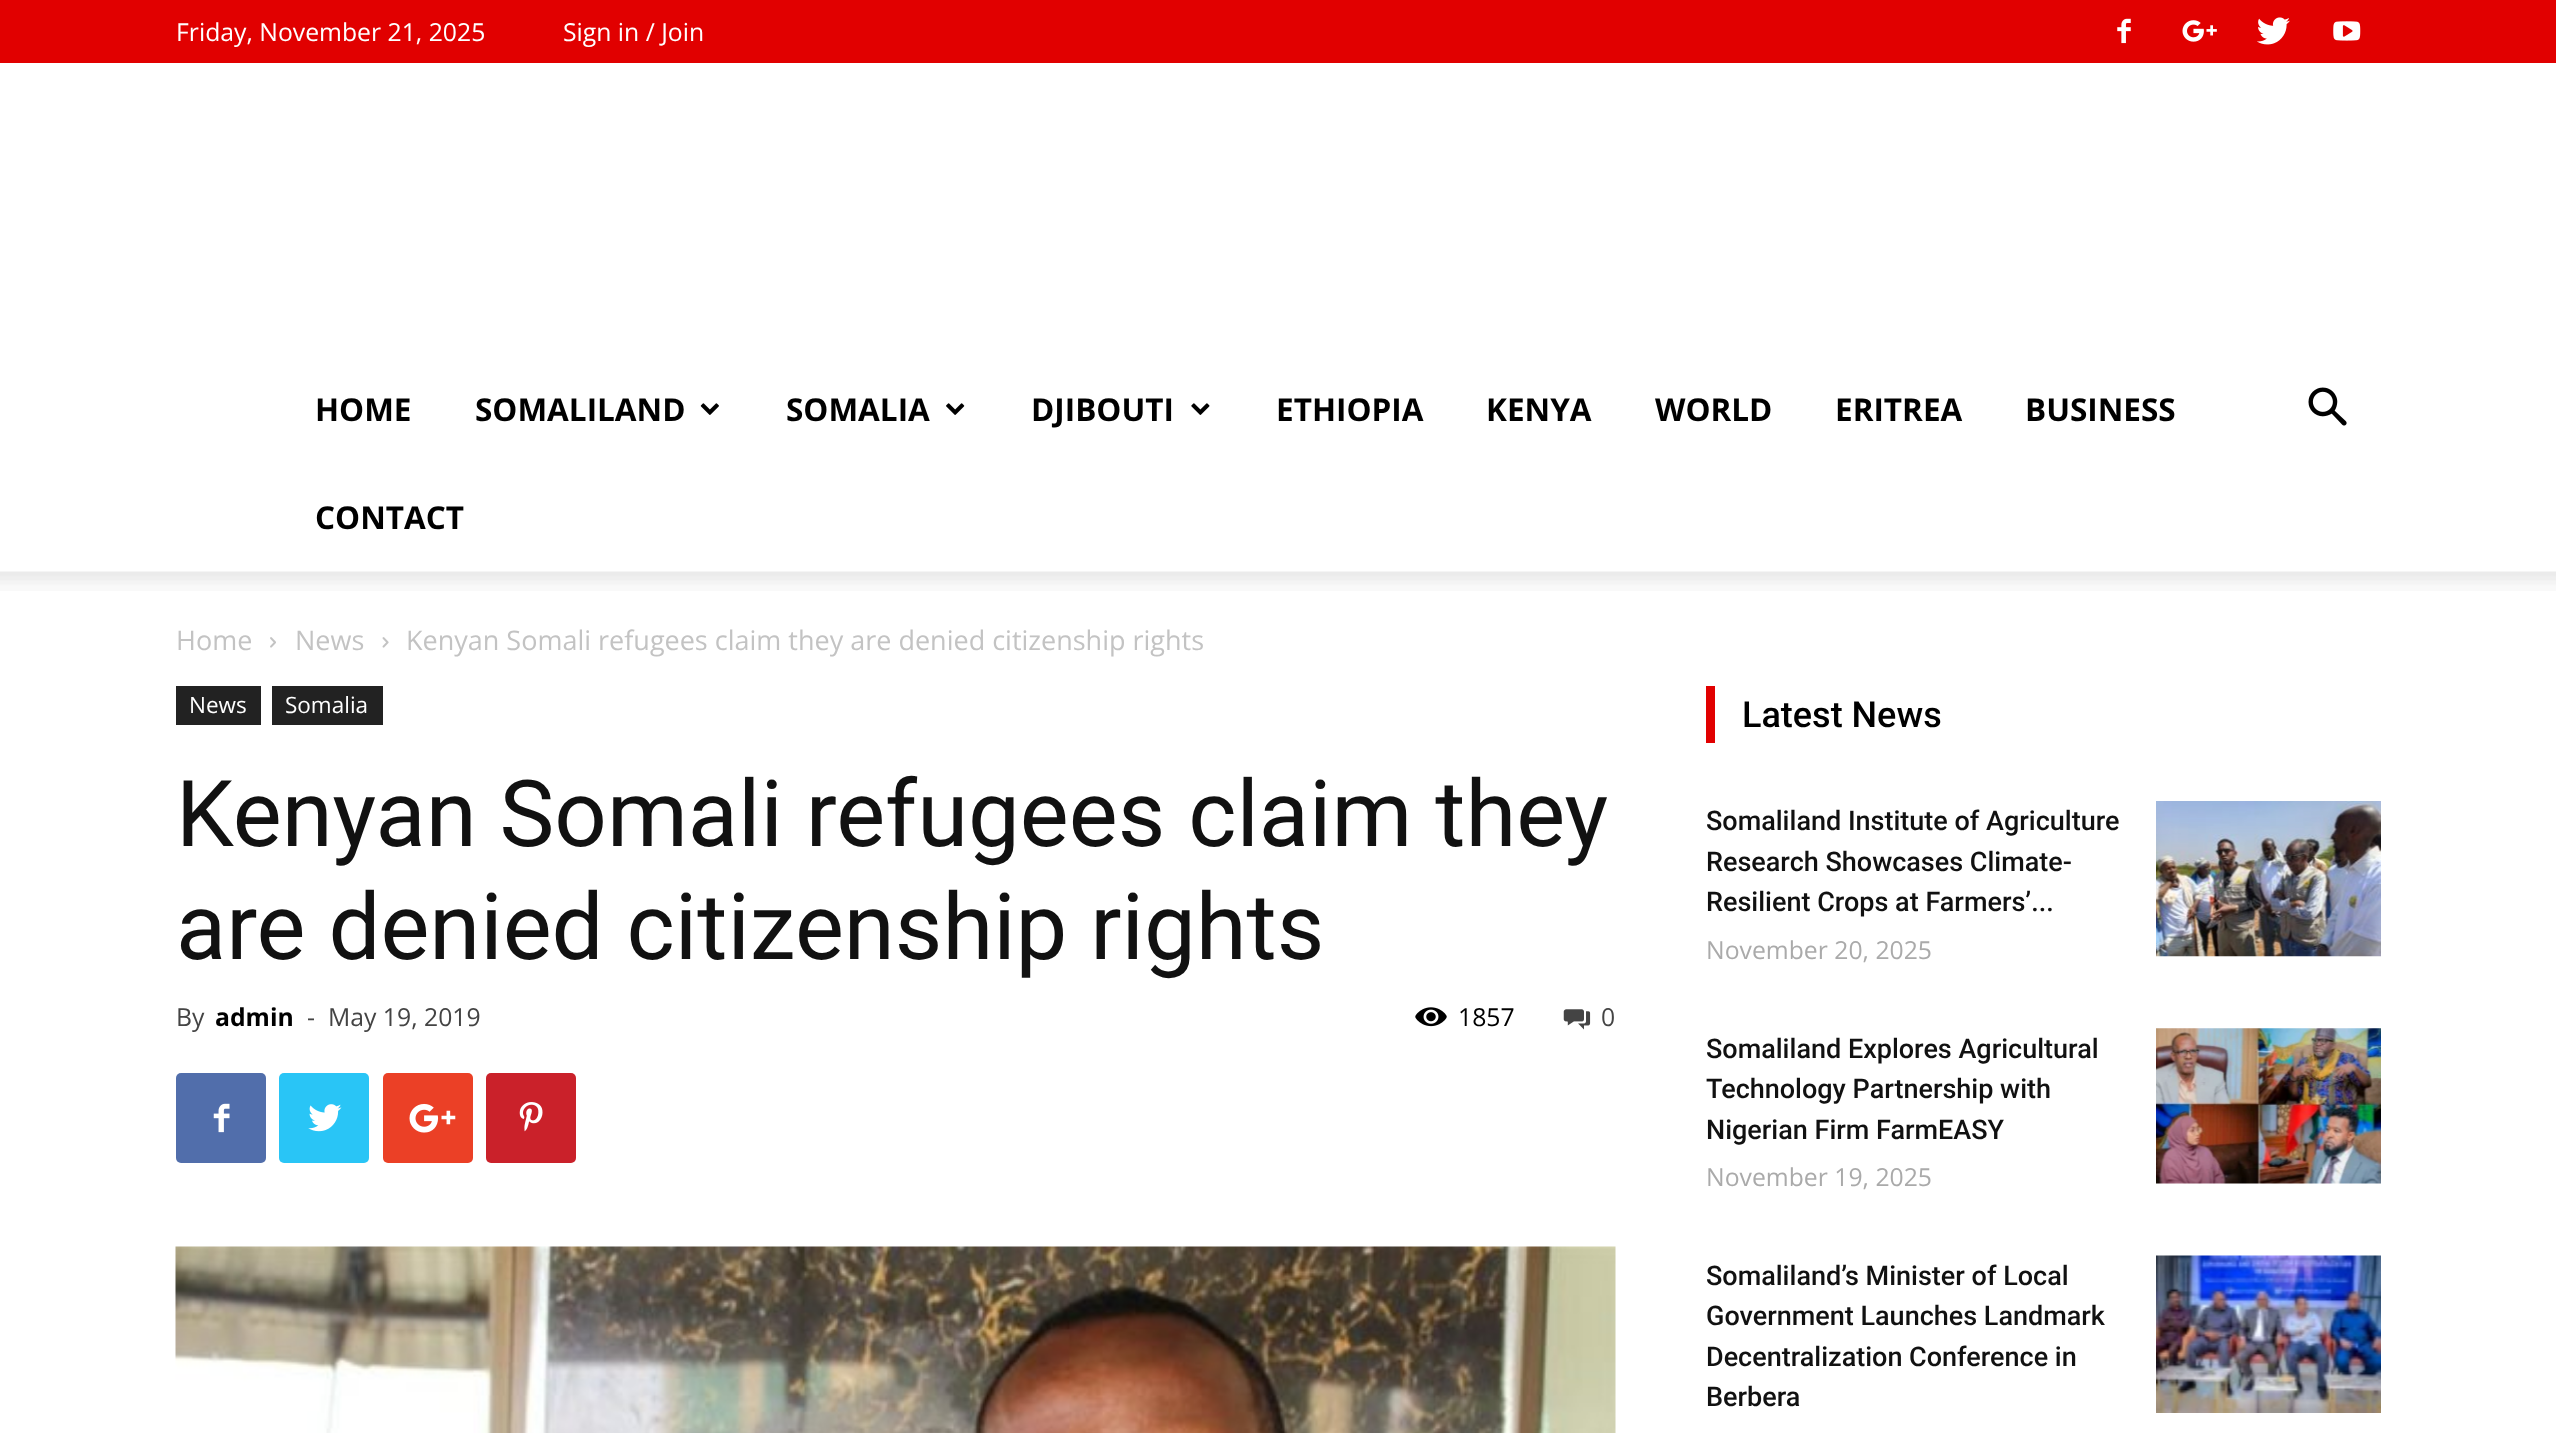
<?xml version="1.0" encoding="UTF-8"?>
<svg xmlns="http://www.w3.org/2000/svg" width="2556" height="1433">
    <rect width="100%" height="100%" fill="#FFFFFF"/>
    <rect x="0" y="0" width="2556" height="63" fill="#E10000"/>
    <text x="176" y="41" font-family="Open Sans" font-size="24.75" fill="#FFFFFF">Friday, November 21, 2025</text>
    <text x="563" y="41" font-family="Open Sans" font-size="24.75" fill="#FFFFFF">Sign in / Join</text>
    <image x="2117" y="18" width="14" height="26" href="img_01.png"/>
    <image x="2182" y="20" width="35" height="22" href="img_02.png"/>
    <image x="2257" y="17" width="33" height="28" href="img_03.png"/>
    <image x="2333" y="21" width="28" height="20" href="img_04.png"/>
    <text x="315" y="421" font-family="Open Sans" font-size="31.5" font-weight="700" fill="#000000">HOME</text>
    <text x="475" y="421" font-family="Open Sans" font-size="31.5" font-weight="700" fill="#000000">SOMALILAND</text>
    <image x="700" y="403" width="19" height="12" href="img_05.png"/>
    <text x="786" y="421" font-family="Open Sans" font-size="31.5" font-weight="700" fill="#000000">SOMALIA</text>
    <image x="946" y="403" width="19" height="12" href="img_06.png"/>
    <text x="1031" y="421" font-family="Open Sans" font-size="31.5" font-weight="700" fill="#000000">DJIBOUTI</text>
    <image x="1191" y="403" width="19" height="12" href="img_07.png"/>
    <text x="1276" y="421" font-family="Open Sans" font-size="31.5" font-weight="700" fill="#000000">ETHIOPIA</text>
    <text x="1486" y="421" font-family="Open Sans" font-size="31.5" font-weight="700" fill="#000000">KENYA</text>
    <text x="1655" y="421" font-family="Open Sans" font-size="31.5" font-weight="700" fill="#000000">WORLD</text>
    <text x="1835" y="421" font-family="Open Sans" font-size="31.5" font-weight="700" fill="#000000">ERITREA</text>
    <text x="2025" y="421" font-family="Open Sans" font-size="31.5" font-weight="700" fill="#000000">BUSINESS</text>
    <text x="315" y="529" font-family="Open Sans" font-size="31.5" font-weight="700" fill="#000000">CONTACT</text>
    <image x="2308" y="387" width="39" height="39" href="img_08.png"/>
    <image x="0" y="571" width="2556" height="20" href="img_09.png"/>
    <text x="176" y="650" font-family="Open Sans" font-size="27" fill="#C3C3C3">Home</text>
    <image x="270" y="637" width="6" height="11" href="img_10.png"/>
    <text x="295" y="650" font-family="Open Sans" font-size="27" fill="#C3C3C3">News</text>
    <image x="382" y="637" width="7" height="11" href="img_11.png"/>
    <text x="406" y="650" font-family="Open Sans" font-size="27" fill="#C3C3C3">Kenyan Somali refugees claim they are denied citizenship rights</text>
    <rect x="176" y="686" width="85" height="39" fill="#222222"/>
    <text x="189" y="713" font-family="Open Sans" font-size="22.5" fill="#FFFFFF">News</text>
    <rect x="272" y="686" width="111" height="39" fill="#222222"/>
    <text x="285" y="713" font-family="Open Sans" font-size="22.5" fill="#FFFFFF">Somalia</text>
    <text font-family="Roboto" font-size="92.25" fill="#111111">
        <tspan x="176" y="846">Kenyan Somali refugees claim they</tspan>
        <tspan x="176" y="959">are denied citizenship rights</tspan>
    </text>
    <text x="176" y="1026" font-family="Open Sans" font-size="24.75" fill="#444444">By</text>
    <text x="215" y="1026" font-family="Open Sans" font-size="24.75" font-weight="700" fill="#000000">admin</text>
    <text x="307" y="1026" font-family="Open Sans" font-size="24.75" fill="#444444">-</text>
    <text x="328" y="1026" font-family="Open Sans" font-size="24.75" fill="#444444">May 19, 2019</text>
    <image x="1415" y="1007" width="32" height="20" href="img_12.png"/>
    <text x="1458" y="1026" font-family="Open Sans" font-size="24.75" fill="#000000">1857</text>
    <image x="1563" y="1009" width="28" height="21" href="img_13.png"/>
    <text x="1601" y="1026" font-family="Open Sans" font-size="24.75" fill="#444444">0</text>
    <rect x="176" y="1073" width="90" height="90" rx="5" fill="#516EAB"/>
    <image x="213" y="1103" width="17" height="30" href="img_14.png"/>
    <rect x="279" y="1073" width="90" height="90" rx="5" fill="#29C5F6"/>
    <image x="308" y="1104" width="34" height="28" href="img_15.png"/>
    <rect x="383" y="1073" width="90" height="90" rx="5" fill="#EB4026"/>
    <image x="409" y="1103" width="47" height="30" href="img_16.png"/>
    <rect x="486" y="1073" width="90" height="90" rx="5" fill="#CA212A"/>
    <image x="519" y="1102" width="24" height="30" href="img_17.png"/>
    <image x="175" y="1246" width="1441" height="187" href="img_18.png"/>
    <rect x="1706" y="686" width="9" height="57" fill="#E10000"/>
    <text x="1742" y="727" font-family="Roboto" font-size="36" font-weight="500" fill="#000000">Latest News</text>
    <text font-family="Roboto" font-size="27" font-weight="500" fill="#111111">
        <tspan x="1706" y="830">Somaliland Institute of Agriculture</tspan>
        <tspan x="1706" y="871">Research Showcases Climate-</tspan>
        <tspan x="1706" y="911">Resilient Crops at Farmers’...</tspan>
    </text>
    <text x="1706" y="959" font-family="Open Sans" font-size="24.75" fill="#AAAAAA">November 20, 2025</text>
    <image x="2156" y="801" width="225" height="156" href="img_19.png"/>
    <text font-family="Roboto" font-size="27" font-weight="500" fill="#111111">
        <tspan x="1706" y="1058">Somaliland Explores Agricultural</tspan>
        <tspan x="1706" y="1098">Technology Partnership with</tspan>
        <tspan x="1706" y="1139">Nigerian Firm FarmEASY</tspan>
    </text>
    <text x="1706" y="1186" font-family="Open Sans" font-size="24.75" fill="#AAAAAA">November 19, 2025</text>
    <image x="2156" y="1028" width="225" height="156" href="img_20.png"/>
    <text font-family="Roboto" font-size="27" font-weight="500" fill="#111111">
        <tspan x="1706" y="1285">Somaliland’s Minister of Local</tspan>
        <tspan x="1706" y="1325">Government Launches Landmark</tspan>
        <tspan x="1706" y="1366">Decentralization Conference in</tspan>
        <tspan x="1706" y="1406">Berbera</tspan>
    </text>
    <image x="2156" y="1255" width="225" height="158" href="img_21.png"/>
</svg>
